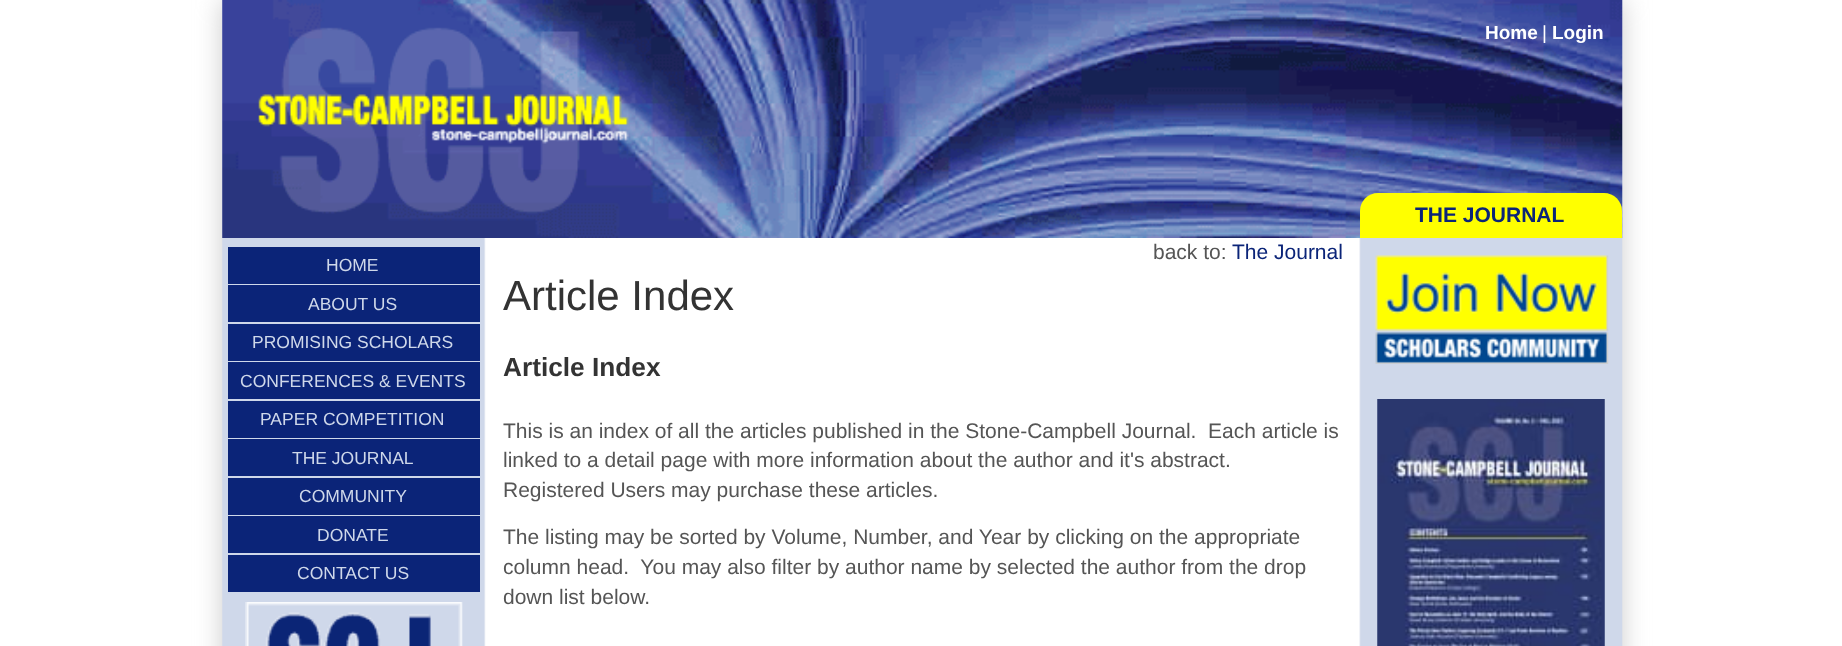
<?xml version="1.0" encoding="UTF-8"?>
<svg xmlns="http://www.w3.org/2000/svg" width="1842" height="646">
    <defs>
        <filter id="blur1" x="-50%" y="-200%" width="200%" height="500%"><feGaussianBlur stdDeviation="13"/></filter>
    </defs>
    <rect width="100%" height="100%" fill="#FFFFFF"/>
    <rect x="222" y="0" width="1400" height="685" fill="#CCCCCC" filter="url(#blur1)"/>
    <image x="222" y="0" width="1401" height="646" href="img_01.png"/>
    <image x="222" y="0" width="1401" height="238" href="img_02.png"/>
    <text x="1485" y="39" font-family="Liberation Sans" font-size="19" font-weight="700" fill="#FFFFFF">Home</text>
    <text x="1542" y="39" font-family="Liberation Sans" font-size="19" fill="#FFFFFF">|</text>
    <text x="1552" y="39" font-family="Liberation Sans" font-size="19" font-weight="700" fill="#FFFFFF">Login</text>
    <path d="M 1378 193 H 1604 C 1614 193 1622 201 1622 211 V 238 H 1360 V 211 C 1360 201 1368 193 1378 193 Z" fill="#FFFF00"/>
    <text x="1415" y="222" font-family="Liberation Sans" font-size="21" font-weight="700" fill="#0B2478">THE JOURNAL</text>
    <rect x="228" y="247" width="252" height="37" fill="#0B2478"/>
    <text x="326" y="271" font-family="Liberation Sans" font-size="17.5" fill="#CFD8EA">HOME</text>
    <rect x="228" y="285" width="252" height="37" fill="#0B2478"/>
    <text x="308" y="310" font-family="Liberation Sans" font-size="17.5" fill="#CFD8EA">ABOUT US</text>
    <rect x="228" y="324" width="252" height="37" fill="#0B2478"/>
    <text x="252" y="348" font-family="Liberation Sans" font-size="17.5" fill="#CFD8EA">PROMISING SCHOLARS</text>
    <rect x="228" y="362" width="252" height="37" fill="#0B2478"/>
    <text x="240" y="387" font-family="Liberation Sans" font-size="17.5" fill="#CFD8EA">CONFERENCES &amp; EVENTS</text>
    <rect x="228" y="401" width="252" height="37" fill="#0B2478"/>
    <text x="260" y="425" font-family="Liberation Sans" font-size="17.5" fill="#CFD8EA">PAPER COMPETITION</text>
    <rect x="228" y="439" width="252" height="37" fill="#0B2478"/>
    <text x="292" y="464" font-family="Liberation Sans" font-size="17.5" fill="#CFD8EA">THE JOURNAL</text>
    <rect x="228" y="478" width="252" height="37" fill="#0B2478"/>
    <text x="299" y="502" font-family="Liberation Sans" font-size="17.5" fill="#CFD8EA">COMMUNITY</text>
    <rect x="228" y="516" width="252" height="37" fill="#0B2478"/>
    <text x="317" y="541" font-family="Liberation Sans" font-size="17.5" fill="#CFD8EA">DONATE</text>
    <rect x="228" y="555" width="252" height="37" fill="#0B2478"/>
    <text x="297" y="579" font-family="Liberation Sans" font-size="17.5" fill="#CFD8EA">CONTACT US</text>
    <image x="245" y="602" width="218" height="44" href="img_03.png"/>
    <text x="1153" y="259" font-family="Liberation Sans" font-size="21" fill="#555555">back to:</text>
    <text x="1232" y="259" font-family="Liberation Sans" font-size="21" fill="#0B2478">The Journal</text>
    <text x="503" y="310" font-family="Liberation Sans" font-size="42" fill="#333333">Article Index</text>
    <text x="503" y="376" font-family="Liberation Sans" font-size="26.25" font-weight="700" fill="#333333">Article Index</text>
    <text font-family="Liberation Sans" font-size="21" fill="#555555" xml:space="preserve"><tspan x="503" y="438">This is an index of all the articles published in the Stone-Campbell Journal.  Each article is</tspan><tspan x="503" y="467">linked to a detail page with more information about the author and it's abstract.</tspan><tspan x="503" y="497">Registered Users may purchase these articles.</tspan></text>
    <text font-family="Liberation Sans" font-size="21" fill="#555555" xml:space="preserve"><tspan x="503" y="544">The listing may be sorted by Volume, Number, and Year by clicking on the appropriate</tspan><tspan x="503" y="574">column head.  You may also filter by author name by selected the author from the drop</tspan><tspan x="503" y="604">down list below.</tspan></text>
    <image x="1375" y="255" width="234" height="109" href="img_04.png"/>
    <image x="1377" y="399" width="228" height="247" href="img_05.png"/>
</svg>
